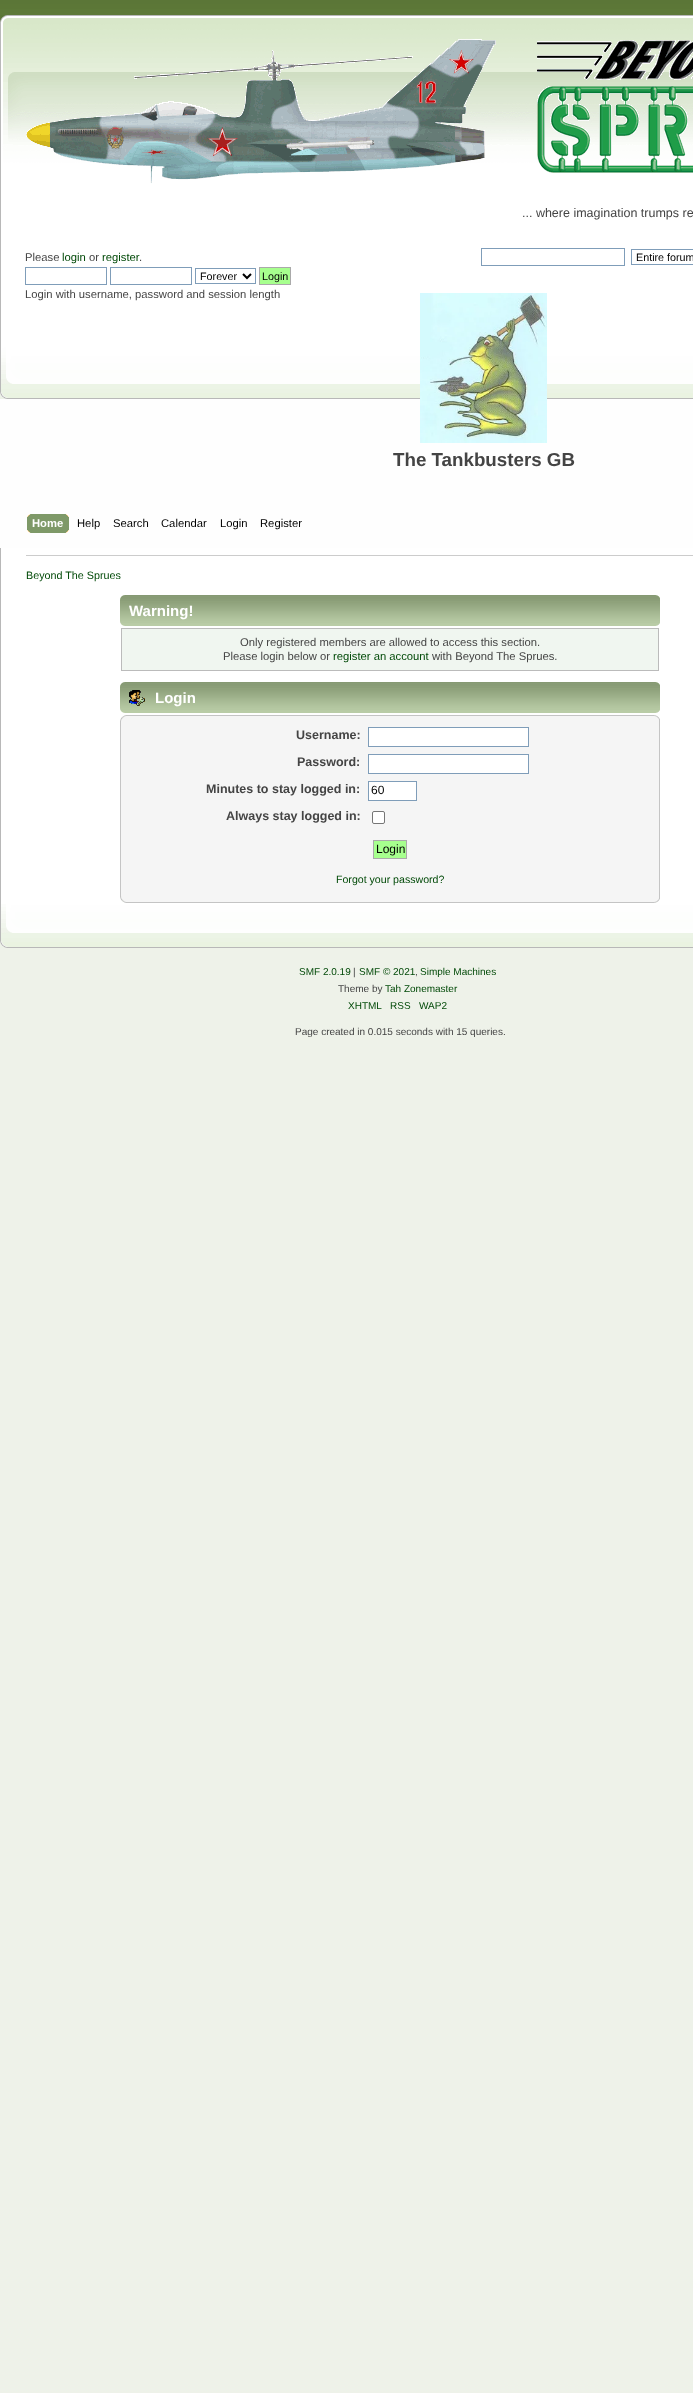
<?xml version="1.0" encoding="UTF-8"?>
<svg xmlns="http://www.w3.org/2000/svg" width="693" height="2393">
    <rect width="100%" height="100%" fill="#EEF2E9"/>
    <image x="0" y="0" width="693" height="15" href="img_01.png"/>
    <rect x="0" y="399" width="693" height="149" fill="#FEFEFE"/>
    <image x="0" y="15" width="693" height="384" href="img_02.png"/>
    <image x="20" y="112" width="673" height="6" href="img_03.png"/>
    <image x="26" y="39" width="667" height="145" href="img_04.png"/>
    <text x="522" y="217" font-family="Liberation Sans" font-size="12.5" fill="#444444">... where imagination trumps re</text>
    <text x="25" y="261" font-family="Liberation Sans" font-size="11.25" fill="#444444">Please</text>
    <text x="62" y="261" font-family="Liberation Sans" font-size="11.25" fill="#004907">login</text>
    <text x="89" y="261" font-family="Liberation Sans" font-size="11.25" fill="#444444">or</text>
    <text x="102" y="261" font-family="Liberation Sans" font-size="11.25" fill="#004907">register</text>
    <text x="139" y="261" font-family="Liberation Sans" font-size="11.25" fill="#444444">.</text>
    <rect x="25.5" y="267.5" width="81" height="17" fill="none" stroke="#7F9DB9"/>
    <rect x="110.5" y="267.5" width="81" height="17" fill="none" stroke="#7F9DB9"/>
    <rect x="195.5" y="268.5" width="60" height="15" fill="none" stroke="#7F9DB9"/>
    <path d="M 243 274 L 247 278 L 251 274" fill="none" stroke="#000000" stroke-width="2"/>
    <text x="200" y="280" font-family="Liberation Sans" font-size="10.75" fill="#000000">Forever</text>
    <rect x="259.5" y="267.5" width="31" height="17" fill="#A7FF8E" stroke="#AAAAAA"/>
    <text x="262" y="280" font-family="Liberation Sans" font-size="10.75" fill="#000000">Login</text>
    <text x="25" y="298" font-family="Liberation Sans" font-size="11.25" fill="#444444">Login with username, password and session length</text>
    <rect x="481.5" y="248.5" width="143" height="17" fill="none" stroke="#7F9DB9"/>
    <rect x="631.5" y="249.5" width="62" height="15" fill="none" stroke="#7F9DB9"/>
    <text x="636" y="261" font-family="Liberation Sans" font-size="10.75" fill="#000000">Entire forum</text>
    <image x="420" y="293" width="127" height="150" href="img_05.png"/>
    <text x="393" y="466" font-family="Liberation Sans" font-size="18.75" font-weight="700" fill="#444444">The Tankbusters GB</text>
    <image x="32" y="514" width="37" height="19" href="img_06.png"/>
    <image x="27" y="514" width="5" height="19" href="img_07.png"/>
    <text x="32" y="527" font-family="Liberation Sans" font-size="11.25" font-weight="700" fill="#FFFFFF">Home</text>
    <text x="77" y="527" font-family="Liberation Sans" font-size="11.25" fill="#000000">Help</text>
    <text x="113" y="527" font-family="Liberation Sans" font-size="11.25" fill="#000000">Search</text>
    <text x="161" y="527" font-family="Liberation Sans" font-size="11.25" fill="#000000">Calendar</text>
    <text x="220" y="527" font-family="Liberation Sans" font-size="11.25" fill="#000000">Login</text>
    <text x="260" y="527" font-family="Liberation Sans" font-size="11.25" fill="#000000">Register</text>
    <rect x="1" y="548" width="692" height="356" fill="#FFFFFF"/>
    <rect x="0" y="548" width="1" height="356" fill="#B8B8B8"/>
    <rect x="26" y="555" width="667" height="1" fill="#CCCCCC"/>
    <text x="26" y="579" font-family="Liberation Sans" font-size="10.75" fill="#004907">Beyond The Sprues</text>
    <image x="120" y="595" width="535" height="31" href="img_08.png"/>
    <image x="655" y="595" width="5" height="31" href="img_09.png"/>
    <text x="129" y="616" font-family="Liberation Sans" font-size="15" font-weight="700" fill="#FFFFFF">Warning!</text>
    <rect x="121.5" y="628.5" width="537" height="42" fill="#F0F6F0" stroke="#BBBBBB"/>
    <text x="240" y="646" font-family="Liberation Sans" font-size="11.25" fill="#444444">Only registered members are allowed to access this section.</text>
    <text x="223" y="660" font-family="Liberation Sans" font-size="11.25" fill="#444444">Please login below or</text>
    <text x="333" y="660" font-family="Liberation Sans" font-size="11.25" fill="#004907">register an account</text>
    <text x="432" y="660" font-family="Liberation Sans" font-size="11.25" fill="#444444">with Beyond The Sprues.</text>
    <image x="120" y="682" width="535" height="31" href="img_08.png"/>
    <image x="655" y="682" width="5" height="31" href="img_09.png"/>
    <image x="129" y="690" width="16" height="16" href="img_10.png"/>
    <text x="155" y="703" font-family="Liberation Sans" font-size="15" font-weight="700" fill="#FFFFFF">Login</text>
    <image x="120" y="715" width="534" height="11" href="img_11.png"/>
    <image x="654" y="715" width="6" height="11" href="img_12.png"/>
    <rect x="121" y="726" width="538" height="166" fill="#F5F5F5"/>
    <rect x="659" y="726" width="1" height="166" fill="#C5C5C5"/>
    <rect x="120" y="726" width="1" height="166" fill="#C5C5C5"/>
    <text x="296" y="739" font-family="Liberation Sans" font-size="12.5" font-weight="700" fill="#444444">Username:</text>
    <rect x="368.5" y="727.5" width="160" height="19" fill="#FFFFFF" stroke="#7F9DB9"/>
    <text x="297" y="766" font-family="Liberation Sans" font-size="12.5" font-weight="700" fill="#444444">Password:</text>
    <rect x="368.5" y="754.5" width="160" height="19" fill="#FFFFFF" stroke="#7F9DB9"/>
    <text x="206" y="793" font-family="Liberation Sans" font-size="12.5" font-weight="700" fill="#444444">Minutes to stay logged in:</text>
    <rect x="368.5" y="781.5" width="48" height="19" fill="#FFFFFF" stroke="#7F9DB9"/>
    <text x="371" y="794" font-family="Liberation Sans" font-size="12" fill="#000000">60</text>
    <text x="226" y="820" font-family="Liberation Sans" font-size="12.5" font-weight="700" fill="#444444">Always stay logged in:</text>
    <rect x="372.5" y="811.5" width="12" height="12" rx="1.5" fill="#FFFFFF" stroke="#767676"/>
    <rect x="373.5" y="840.5" width="33" height="18" fill="#A7FF8E" stroke="#AAAAAA"/>
    <text x="376" y="853" font-family="Liberation Sans" font-size="12" fill="#000000">Login</text>
    <text x="336" y="883" font-family="Liberation Sans" font-size="10.6" fill="#004907">Forgot your password?</text>
    <image x="120" y="892" width="534" height="11" href="img_13.png"/>
    <image x="654" y="892" width="6" height="11" href="img_14.png"/>
    <image x="0" y="904" width="693" height="44" href="img_15.png"/>
    <text x="299" y="975" font-family="Liberation Sans" font-size="10" fill="#004907">SMF 2.0.19</text>
    <text x="353" y="975" font-family="Liberation Sans" font-size="10" fill="#444444">|</text>
    <text x="359" y="975" font-family="Liberation Sans" font-size="10" fill="#004907">SMF © 2021</text>
    <text x="415" y="975" font-family="Liberation Sans" font-size="10" fill="#444444">,</text>
    <text x="420" y="975" font-family="Liberation Sans" font-size="10" fill="#004907">Simple Machines</text>
    <text x="338" y="992" font-family="Liberation Sans" font-size="10" fill="#444444">Theme by</text>
    <text x="385" y="992" font-family="Liberation Sans" font-size="10" fill="#004907">Tah Zonemaster</text>
    <text x="348" y="1009" font-family="Liberation Sans" font-size="10" fill="#004907">XHTML</text>
    <text x="390" y="1009" font-family="Liberation Sans" font-size="10" fill="#004907">RSS</text>
    <text x="419" y="1009" font-family="Liberation Sans" font-size="10" fill="#004907">WAP2</text>
    <text x="295" y="1035" font-family="Liberation Sans" font-size="10" fill="#444444">Page created in 0.015 seconds with 15 queries.</text>
</svg>
